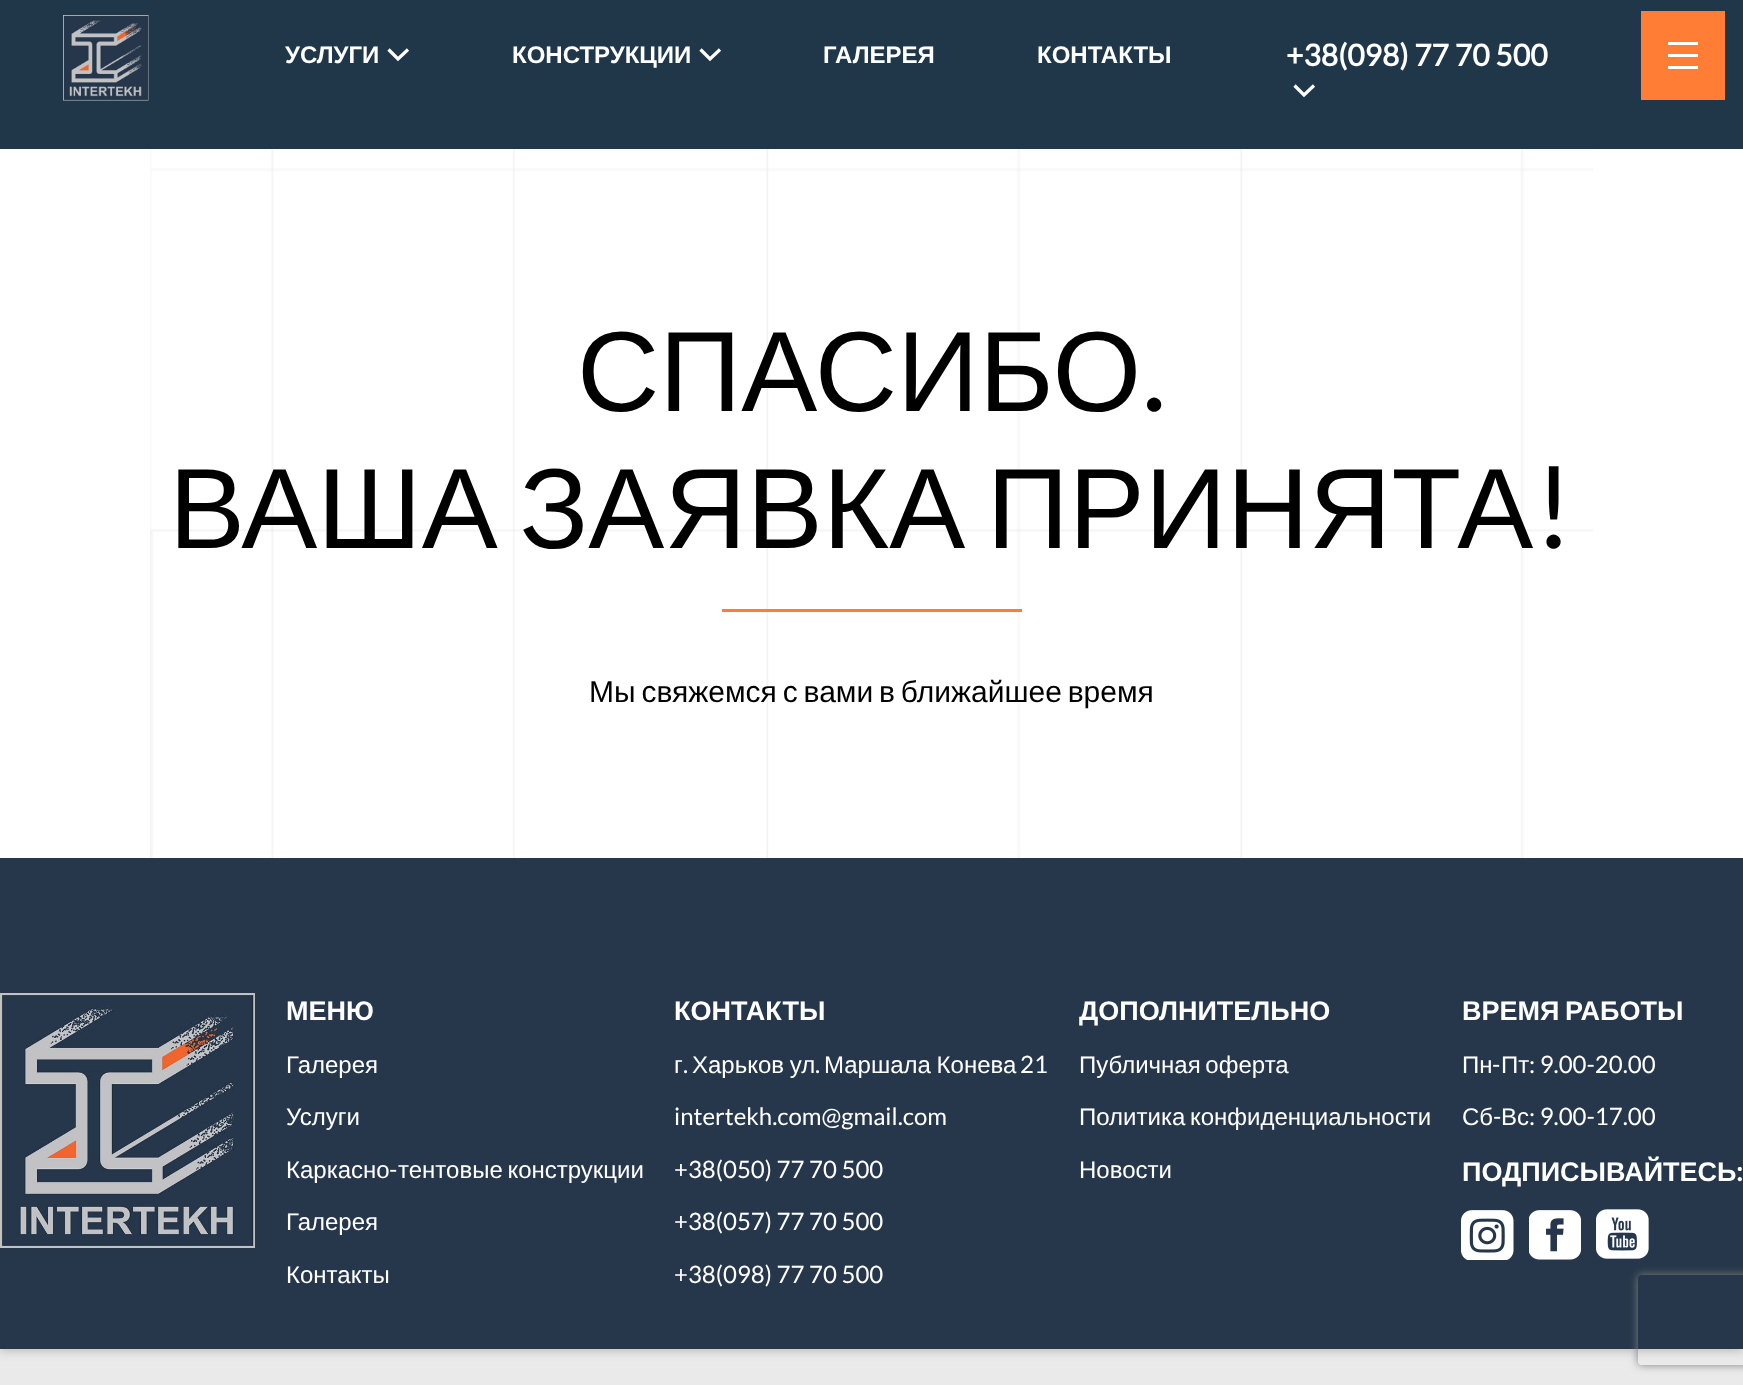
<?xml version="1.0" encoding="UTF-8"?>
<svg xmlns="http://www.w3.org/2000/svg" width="1743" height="1385">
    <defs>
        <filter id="blur1" x="-50%" y="-200%" width="200%" height="500%"><feGaussianBlur stdDeviation="4.5"/></filter>
        <clipPath id="clip1"><path d="M 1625 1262 H 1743 V 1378 H 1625 Z M 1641 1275 H 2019 C 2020.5 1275 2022 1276.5 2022 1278 V 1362 C 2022 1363.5 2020.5 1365 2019 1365 H 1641 C 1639.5 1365 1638 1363.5 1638 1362 V 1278 C 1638 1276.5 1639.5 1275 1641 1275 Z" clip-rule="evenodd"/></clipPath>
        <filter id="blur2" x="-50%" y="-200%" width="200%" height="500%"><feGaussianBlur stdDeviation="4"/></filter>
    </defs>
    <rect width="100%" height="100%" fill="#EAEAEA"/>
    <rect x="0" y="3" width="1743" height="1349" fill="#646464" fill-opacity="0.3" filter="url(#blur1)"/>
    <rect x="0" y="149" width="1743" height="709" fill="#FFFFFF"/>
    <rect x="0" y="0" width="1743" height="149" fill="#20374A"/>
    <image x="63" y="15" width="86" height="86" href="img_01.png"/>
    <text x="285" y="63" font-family="Liberation Sans" font-size="24" font-weight="700" fill="#FFFFFF">УСЛУГИ</text>
    <path d="M 388.5 49.5 L 398 59 L 408 49.5" fill="none" stroke="#FFFFFF" stroke-width="3.2"/>
    <text x="512" y="63" font-family="Liberation Sans" font-size="24" font-weight="700" fill="#FFFFFF">КОНСТРУКЦИИ</text>
    <path d="M 700.5 49.5 L 710 59 L 720 49.5" fill="none" stroke="#FFFFFF" stroke-width="3.2"/>
    <text x="823" y="63" font-family="Liberation Sans" font-size="24" font-weight="700" fill="#FFFFFF">ГАЛЕРЕЯ</text>
    <text x="1037" y="63" font-family="Liberation Sans" font-size="24" font-weight="700" fill="#FFFFFF">КОНТАКТЫ</text>
    <text x="1286" y="66" font-family="Lato" font-size="30" font-weight="700" fill="#FFFFFF">+38(098) 77 70 500</text>
    <path d="M 1294.5 85.5 L 1304 95 L 1314 85.5" fill="none" stroke="#FFFFFF" stroke-width="3.2"/>
    <rect x="1641" y="11" width="84" height="89" fill="#FF7D35"/>
    <rect x="1668" y="42" width="30" height="3" fill="#FFFFFF"/>
    <rect x="1668" y="54" width="30" height="3" fill="#FFFFFF"/>
    <rect x="1668" y="66" width="30" height="3" fill="#FFFFFF"/>
    <image x="150" y="149" width="1443" height="709" href="img_02.png"/>
    <text x="577" y="411" font-family="Liberation Sans" font-size="114" fill="#000000">СПАСИБО</text>
    <text x="1142" y="411" font-family="Lato" font-size="114" fill="#000000">.</text>
    <text x="169" y="548" word-spacing="-10" font-family="Liberation Sans" font-size="114" fill="#000000">ВАША ЗАЯВКА ПРИНЯТА</text>
    <text x="1534" y="548" font-family="Lato" font-size="114" fill="#000000">!</text>
    <rect x="722" y="609" width="300" height="3" fill="#FF7D37"/>
    <text x="589" y="702" word-spacing="-2.5" font-family="Liberation Sans" font-size="30" fill="#000000">Мы свяжемся с вами в ближайшее время</text>
    <rect x="0" y="858" width="1743" height="491" fill="#26374B"/>
    <image x="0" y="993" width="255" height="255" href="img_03.png"/>
    <text x="286" y="1020" font-family="Liberation Sans" font-size="27" font-weight="700" fill="#FFFFFF">МЕНЮ</text>
    <text x="286" y="1073" font-family="Liberation Sans" font-size="24" fill="#FFFFFF">Галерея</text>
    <text x="286" y="1125" font-family="Liberation Sans" font-size="24" fill="#FFFFFF">Услуги</text>
    <text x="286" y="1178" font-family="Liberation Sans" font-size="24" fill="#FFFFFF">Каркасно</text>
    <text x="389" y="1178" font-family="Lato" font-size="24" fill="#FFFFFF">-</text>
    <text x="398" y="1178" word-spacing="-2" font-family="Liberation Sans" font-size="24" fill="#FFFFFF">тентовые конструкции</text>
    <text x="286" y="1230" font-family="Liberation Sans" font-size="24" fill="#FFFFFF">Галерея</text>
    <text x="286" y="1283" font-family="Liberation Sans" font-size="24" fill="#FFFFFF">Контакты</text>
    <text x="674" y="1020" font-family="Liberation Sans" font-size="27" font-weight="700" fill="#FFFFFF">КОНТАКТЫ</text>
    <text x="674" y="1073" font-family="Liberation Sans" font-size="24" fill="#FFFFFF">г</text>
    <text x="683" y="1073" font-family="Lato" font-size="24" fill="#FFFFFF">.</text>
    <text x="692" y="1073" word-spacing="-1" font-family="Liberation Sans" font-size="24" fill="#FFFFFF">Харьков ул</text>
    <text x="815" y="1073" font-family="Lato" font-size="24" fill="#FFFFFF">.</text>
    <text x="824" y="1073" word-spacing="-1" font-family="Liberation Sans" font-size="24" fill="#FFFFFF">Маршала Конева</text>
    <text x="1020" y="1073" font-family="Lato" font-size="24" fill="#FFFFFF">21</text>
    <text x="674" y="1125" font-family="Lato" font-size="24" fill="#FFFFFF">intertekh.com@gmail.com</text>
    <text x="674" y="1178" font-family="Lato" font-size="24" fill="#FFFFFF">+38(050) 77 70 500</text>
    <text x="674" y="1230" font-family="Lato" font-size="24" fill="#FFFFFF">+38(057) 77 70 500</text>
    <text x="674" y="1283" font-family="Lato" font-size="24" fill="#FFFFFF">+38(098) 77 70 500</text>
    <text x="1079" y="1020" font-family="Liberation Sans" font-size="27" font-weight="700" fill="#FFFFFF">ДОПОЛНИТЕЛЬНО</text>
    <text x="1079" y="1073" word-spacing="-2" font-family="Liberation Sans" font-size="24" fill="#FFFFFF">Публичная оферта</text>
    <text x="1079" y="1125" word-spacing="-2" font-family="Liberation Sans" font-size="24" fill="#FFFFFF">Политика конфиденциальности</text>
    <text x="1079" y="1178" font-family="Liberation Sans" font-size="24" fill="#FFFFFF">Новости</text>
    <text x="1462" y="1020" word-spacing="-2" font-family="Liberation Sans" font-size="27" font-weight="700" fill="#FFFFFF">ВРЕМЯ РАБОТЫ</text>
    <text x="1462" y="1073" font-family="Liberation Sans" font-size="24" fill="#FFFFFF">Пн</text>
    <text x="1492" y="1073" font-family="Lato" font-size="24" fill="#FFFFFF">-</text>
    <text x="1501" y="1073" font-family="Liberation Sans" font-size="24" fill="#FFFFFF">Пт</text>
    <text x="1529" y="1073" font-family="Lato" font-size="24" fill="#FFFFFF">: 9.00-20.00</text>
    <text x="1462" y="1125" font-family="Liberation Sans" font-size="24" fill="#FFFFFF">Сб</text>
    <text x="1493" y="1125" font-family="Lato" font-size="24" fill="#FFFFFF">-</text>
    <text x="1501" y="1125" font-family="Liberation Sans" font-size="24" fill="#FFFFFF">Вс</text>
    <text x="1529" y="1125" font-family="Lato" font-size="24" fill="#FFFFFF">: 9.00-17.00</text>
    <text x="1462" y="1181" font-family="Liberation Sans" font-size="27" font-weight="700" fill="#FFFFFF">ПОДПИСЫВАЙТЕСЬ</text>
    <text x="1736" y="1181" font-family="Lato" font-size="27" font-weight="700" fill="#FFFFFF">:</text>
    <image x="1461" y="1210" width="53" height="50" href="img_04.png"/>
    <image x="1529" y="1210" width="52" height="50" href="img_05.png"/>
    <image x="1596" y="1209" width="53" height="50" href="img_06.png"/>
    <g clip-path="url(#clip1)">
        <rect x="1638" y="1275" width="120" height="90" rx="3" fill="#808080" filter="url(#blur2)"/>
    </g>
</svg>
